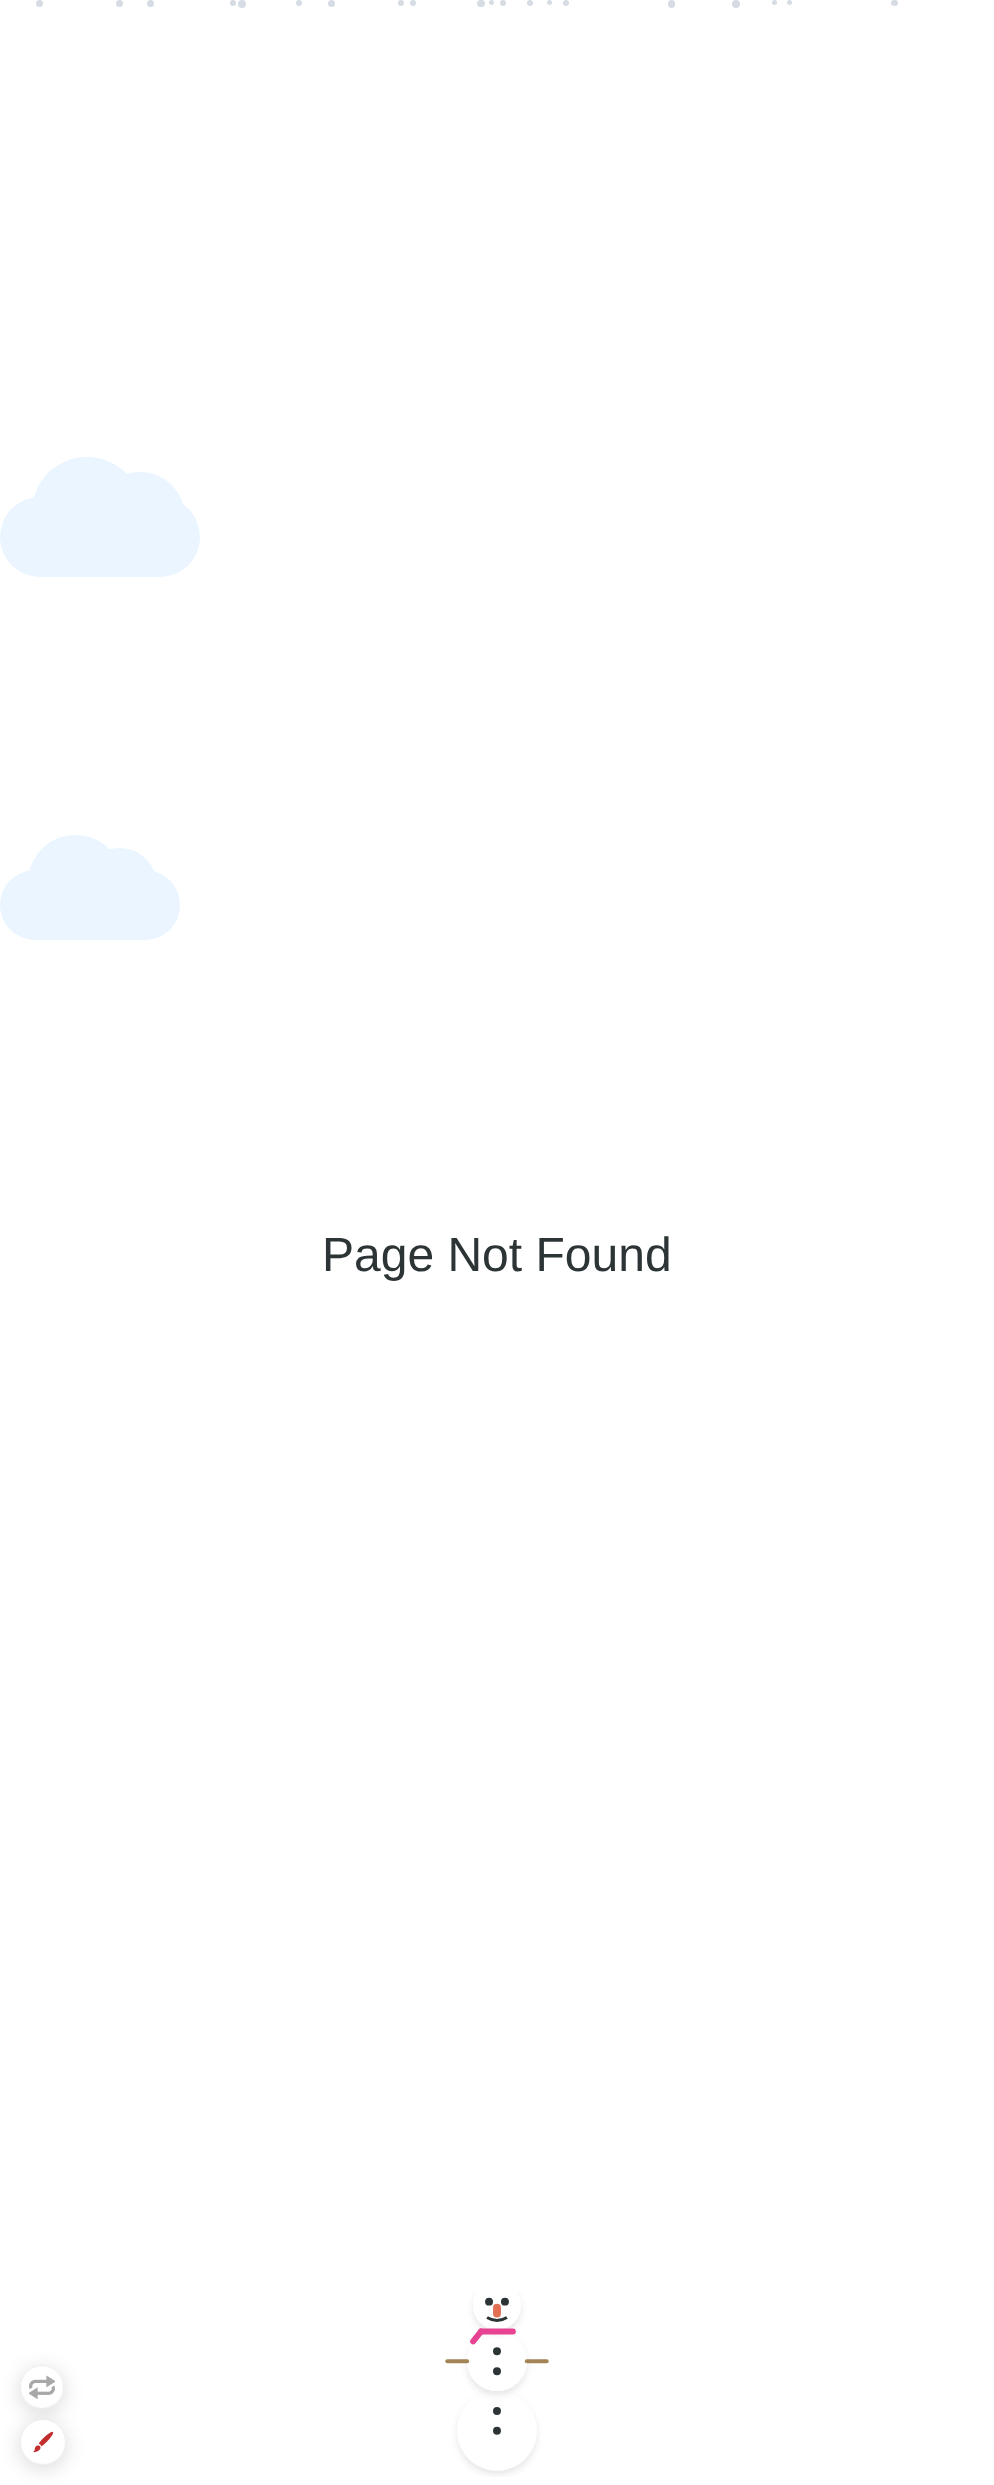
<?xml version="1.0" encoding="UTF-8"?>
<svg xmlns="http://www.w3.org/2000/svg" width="994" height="2485">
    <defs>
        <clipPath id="clip1"><path d="M 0 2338 H 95 V 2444 H 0 Z M 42 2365 C 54 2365 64 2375 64 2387 C 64 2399 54 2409 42 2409 C 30 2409 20 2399 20 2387 C 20 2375 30 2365 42 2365 Z" clip-rule="evenodd"/></clipPath>
        <filter id="blur1" x="-50%" y="-200%" width="200%" height="500%"><feGaussianBlur stdDeviation="10"/></filter>
        <clipPath id="clip2"><path d="M 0 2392 H 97 V 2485 H 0 Z M 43 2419 C 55.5 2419 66 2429.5 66 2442 C 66 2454.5 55.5 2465 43 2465 C 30.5 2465 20 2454.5 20 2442 C 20 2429.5 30.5 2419 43 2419 Z" clip-rule="evenodd"/></clipPath>
    </defs>
    <rect width="100%" height="100%" fill="#FFFFFF"/>
    <circle cx="39.5" cy="3.5" r="3.5" fill="#D6DCE3"/>
    <circle cx="119.5" cy="3.5" r="3.5" fill="#D6DCE3"/>
    <circle cx="150.5" cy="3.5" r="3.5" fill="#D6DCE3"/>
    <circle cx="233" cy="3" r="3" fill="#D6DCE3"/>
    <circle cx="242" cy="4" r="4" fill="#D6DCE3"/>
    <circle cx="299" cy="3" r="3" fill="#D6DCE3"/>
    <circle cx="331.5" cy="3.5" r="3.5" fill="#D6DCE3"/>
    <circle cx="401" cy="3" r="3" fill="#D6DCE3"/>
    <circle cx="413" cy="3" r="3" fill="#D6DCE3"/>
    <rect x="477" y="0" width="8" height="7" rx="3.5" fill="#D6DCE3"/>
    <circle cx="491.5" cy="2.5" r="2.5" fill="#D6DCE3"/>
    <circle cx="503" cy="3" r="3" fill="#D6DCE3"/>
    <circle cx="530" cy="3" r="3" fill="#D6DCE3"/>
    <circle cx="549.5" cy="2.5" r="2.5" fill="#D6DCE3"/>
    <circle cx="566" cy="3" r="3" fill="#D6DCE3"/>
    <rect x="668" y="0" width="7" height="8" rx="3.5" fill="#D6DCE3"/>
    <circle cx="736" cy="4" r="4" fill="#D6DCE3"/>
    <circle cx="774.5" cy="2.5" r="2.5" fill="#D6DCE3"/>
    <circle cx="789.5" cy="2.5" r="2.5" fill="#D6DCE3"/>
    <rect x="891" y="0" width="7" height="6" rx="3" fill="#D6DCE3"/>
    <rect x="0" y="497" width="200" height="80" rx="40" fill="#EAF5FF"/>
    <circle cx="87" cy="512" r="55" fill="#EAF5FF"/>
    <circle cx="140" cy="517" r="45" fill="#EAF5FF"/>
    <rect x="0" y="870" width="180" height="70" rx="35" fill="#EAF5FF"/>
    <circle cx="75.5" cy="882.5" r="47.5" fill="#EAF5FF"/>
    <circle cx="119.5" cy="885.5" r="37.5" fill="#EAF5FF"/>
    <image x="445" y="2292" width="104" height="185" href="img_01.png"/>
    <text x="322" y="1271" font-family="Liberation Sans" font-size="48" fill="#2D3436">Page Not Found</text>
    <g clip-path="url(#clip1)">
        <rect x="20" y="2369" width="44" height="44" rx="22" fill="#000000" fill-opacity="0.15" filter="url(#blur1)"/>
    </g>
    <circle cx="42" cy="2387" r="22" fill="#FFFFFF" fill-opacity="0.95"/>
    <circle cx="42" cy="2387" r="21.5" fill="none" stroke="#000000" stroke-opacity="0.08"/>
    <image x="29" y="2375" width="26" height="25" href="img_02.png"/>
    <g clip-path="url(#clip2)">
        <rect x="20" y="2423" width="46" height="46" rx="23" fill="#000000" fill-opacity="0.15" filter="url(#blur1)"/>
    </g>
    <circle cx="43" cy="2442" r="23" fill="#FFFFFF" fill-opacity="0.95"/>
    <circle cx="43" cy="2442" r="22.5" fill="none" stroke="#000000" stroke-opacity="0.08"/>
    <image x="33" y="2431" width="21" height="22" href="img_03.png"/>
</svg>
